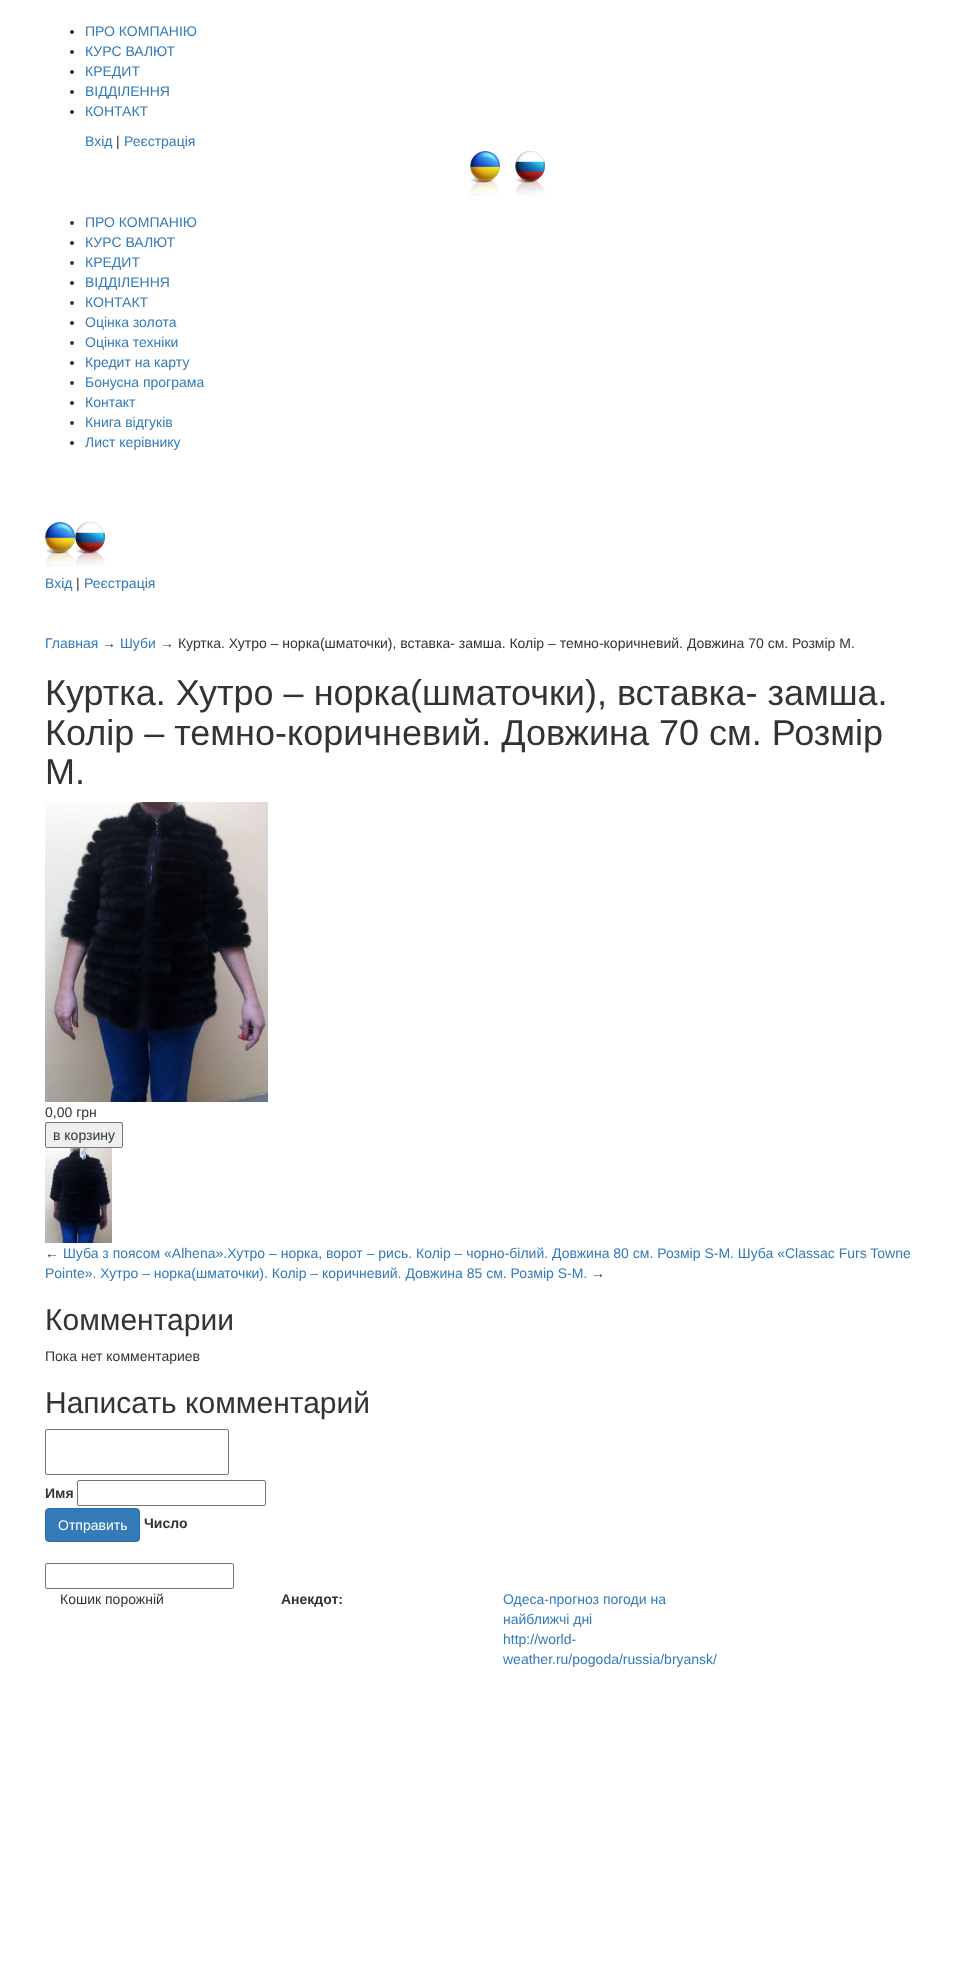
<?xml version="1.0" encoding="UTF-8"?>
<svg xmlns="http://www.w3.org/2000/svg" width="975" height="1967">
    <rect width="100%" height="100%" fill="#FFFFFF"/>
    <circle cx="72" cy="32" r="2" fill="#333333"/>
    <text x="85" y="36" font-family="Liberation Sans" font-size="14" fill="#337AB7">ПРО КОМПАНІЮ</text>
    <circle cx="72" cy="52" r="2" fill="#333333"/>
    <text x="85" y="56" font-family="Liberation Sans" font-size="14" fill="#337AB7">КУРС ВАЛЮТ</text>
    <circle cx="72" cy="72" r="2" fill="#333333"/>
    <text x="85" y="76" font-family="Liberation Sans" font-size="14" fill="#337AB7">КРЕДИТ</text>
    <circle cx="72" cy="92" r="2" fill="#333333"/>
    <text x="85" y="96" font-family="Liberation Sans" font-size="14" fill="#337AB7">ВІДДІЛЕННЯ</text>
    <circle cx="72" cy="112" r="2" fill="#333333"/>
    <text x="85" y="116" font-family="Liberation Sans" font-size="14" fill="#337AB7">КОНТАКТ</text>
    <text x="85" y="146" font-family="Liberation Sans" font-size="14" fill="#337AB7">Вхід</text>
    <text x="116" y="146" font-family="Liberation Sans" font-size="14" fill="#333333">|</text>
    <text x="124" y="146" font-family="Liberation Sans" font-size="14" fill="#337AB7">Реєстрація</text>
    <image x="470" y="151" width="30" height="45" href="img_01.png"/>
    <image x="515" y="151" width="30" height="45" href="img_02.png"/>
    <circle cx="72" cy="223" r="2" fill="#333333"/>
    <text x="85" y="227" font-family="Liberation Sans" font-size="14" fill="#337AB7">ПРО КОМПАНІЮ</text>
    <circle cx="72" cy="243" r="2" fill="#333333"/>
    <text x="85" y="247" font-family="Liberation Sans" font-size="14" fill="#337AB7">КУРС ВАЛЮТ</text>
    <circle cx="72" cy="263" r="2" fill="#333333"/>
    <text x="85" y="267" font-family="Liberation Sans" font-size="14" fill="#337AB7">КРЕДИТ</text>
    <circle cx="72" cy="283" r="2" fill="#333333"/>
    <text x="85" y="287" font-family="Liberation Sans" font-size="14" fill="#337AB7">ВІДДІЛЕННЯ</text>
    <circle cx="72" cy="303" r="2" fill="#333333"/>
    <text x="85" y="307" font-family="Liberation Sans" font-size="14" fill="#337AB7">КОНТАКТ</text>
    <circle cx="72" cy="323" r="2" fill="#333333"/>
    <text x="85" y="327" font-family="Liberation Sans" font-size="14" fill="#337AB7">Оцінка золота</text>
    <circle cx="72" cy="343" r="2" fill="#333333"/>
    <text x="85" y="347" font-family="Liberation Sans" font-size="14" fill="#337AB7">Оцінка техніки</text>
    <circle cx="72" cy="363" r="2" fill="#333333"/>
    <text x="85" y="367" font-family="Liberation Sans" font-size="14" fill="#337AB7">Кредит на карту</text>
    <circle cx="72" cy="383" r="2" fill="#333333"/>
    <text x="85" y="387" font-family="Liberation Sans" font-size="14" fill="#337AB7">Бонусна програма</text>
    <circle cx="72" cy="403" r="2" fill="#333333"/>
    <text x="85" y="407" font-family="Liberation Sans" font-size="14" fill="#337AB7">Контакт</text>
    <circle cx="72" cy="423" r="2" fill="#333333"/>
    <text x="85" y="427" font-family="Liberation Sans" font-size="14" fill="#337AB7">Книга відгуків</text>
    <circle cx="72" cy="443" r="2" fill="#333333"/>
    <text x="85" y="447" font-family="Liberation Sans" font-size="14" fill="#337AB7">Лист керівнику</text>
    <image x="45" y="522" width="30" height="45" href="img_01.png"/>
    <image x="75" y="522" width="30" height="45" href="img_02.png"/>
    <text x="45" y="588" font-family="Liberation Sans" font-size="14" fill="#337AB7">Вхiд</text>
    <text x="76" y="588" font-family="Liberation Sans" font-size="14" fill="#333333">|</text>
    <text x="84" y="588" font-family="Liberation Sans" font-size="14" fill="#337AB7">Реєстрація</text>
    <text x="45" y="648" font-family="Liberation Sans" font-size="14" fill="#337AB7">Главная</text>
    <text x="102" y="648" font-family="Liberation Sans" font-size="14" fill="#333333">→</text>
    <text x="120" y="648" font-family="Liberation Sans" font-size="14" fill="#337AB7">Шуби</text>
    <text x="160" y="648" font-family="Liberation Sans" font-size="14" fill="#333333">→ Куртка. Хутро – норка(шматочки), вставка- замша. Колір – темно-коричневий. Довжина 70 см. Розмір М.</text>
    <text font-family="Liberation Sans" font-size="36" fill="#333333">
        <tspan x="45" y="705">Куртка. Хутро – норка(шматочки), вставка- замша.</tspan>
        <tspan x="45" y="745">Колір – темно-коричневий. Довжина 70 см. Розмір</tspan>
        <tspan x="45" y="784">М.</tspan>
    </text>
    <image x="45" y="802" width="223" height="300" href="img_03.png"/>
    <text x="45" y="1117" font-family="Liberation Sans" font-size="14" fill="#333333">0,00 грн</text>
    <rect x="45.5" y="1122.5" width="77" height="25" rx="1.5" fill="#EFEFEF" stroke="#767676"/>
    <text x="53" y="1140" font-family="Liberation Sans" font-size="14" fill="#333333">в корзину</text>
    <image x="45" y="1148" width="67" height="95" href="img_04.png"/>
    <text x="45" y="1258" font-family="Liberation Sans" font-size="14" fill="#333333">←</text>
    <text x="63" y="1258" font-family="Liberation Sans" font-size="14" fill="#337AB7">Шуба з поясом «Alhena».Хутро – норка, ворот – рись. Колір – чорно-білий. Довжина 80 см. Розмір S-M. Шуба «Classac Furs Towne</text>
    <text x="45" y="1278" font-family="Liberation Sans" font-size="14" fill="#337AB7">Pointe». Хутро – норка(шматочки). Колір – коричневий. Довжина 85 см. Розмір S-M.</text>
    <text x="591" y="1278" font-family="Liberation Sans" font-size="14" fill="#333333">→</text>
    <text x="45" y="1330" font-family="Liberation Sans" font-size="30" fill="#333333">Комментарии</text>
    <text x="45" y="1361" font-family="Liberation Sans" font-size="14" fill="#333333">Пока нет комментариев</text>
    <text x="45" y="1413" font-family="Liberation Sans" font-size="30" fill="#333333">Написать комментарий</text>
    <rect x="45.5" y="1429.5" width="183" height="45" rx="1.5" fill="none" stroke="#767676"/>
    <text x="45" y="1498" font-family="Liberation Sans" font-size="14" font-weight="700" fill="#333333">Имя</text>
    <rect x="77.5" y="1480.5" width="188" height="25" rx="1.5" fill="none" stroke="#767676"/>
    <rect x="45.5" y="1508.5" width="94" height="33" rx="3.5" fill="#337AB7" stroke="#2E6DA4"/>
    <text x="58" y="1530" font-family="Liberation Sans" font-size="14" fill="#FFFFFF">Отправить</text>
    <text x="144" y="1528" font-family="Liberation Sans" font-size="14" font-weight="700" fill="#333333">Число</text>
    <rect x="45.5" y="1563.5" width="188" height="25" rx="1.5" fill="none" stroke="#767676"/>
    <text x="60" y="1604" font-family="Liberation Sans" font-size="14" fill="#333333">Кошик порожній</text>
    <text x="281" y="1604" font-family="Liberation Sans" font-size="14" font-weight="700" fill="#333333">Анекдот:</text>
    <text font-family="Liberation Sans" font-size="14" fill="#337AB7">
        <tspan x="503" y="1604">Одеса-прогноз погоди на</tspan>
        <tspan x="503" y="1624">найближчі дні</tspan>
        <tspan x="503" y="1644">http://world-</tspan>
        <tspan x="503" y="1664">weather.ru/pogoda/russia/bryansk/</tspan>
    </text>
</svg>
